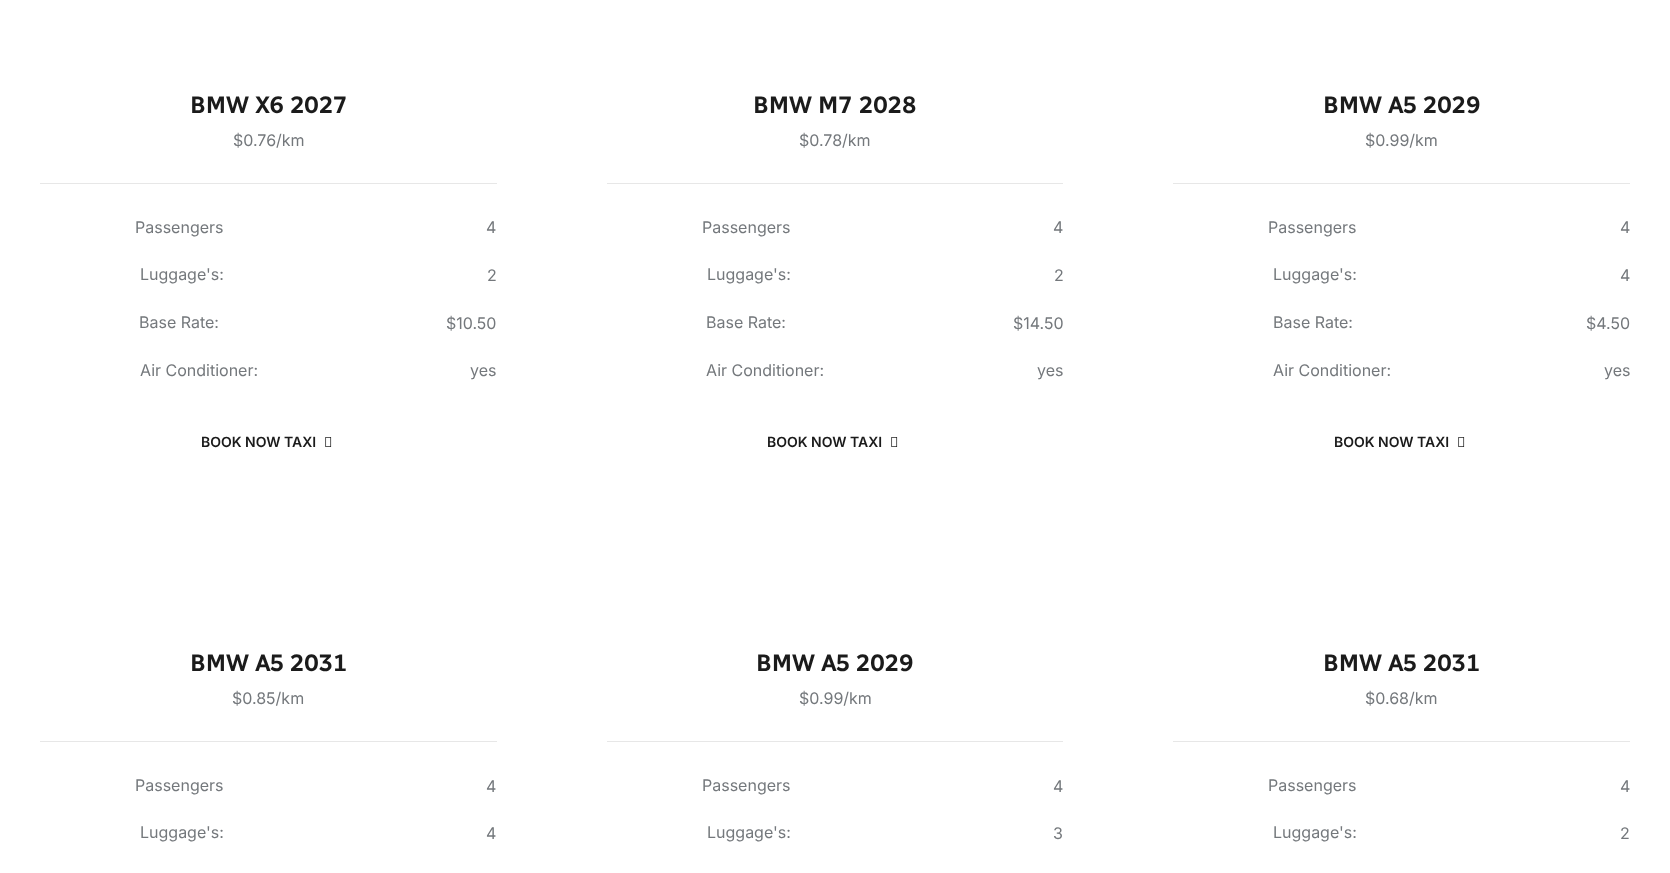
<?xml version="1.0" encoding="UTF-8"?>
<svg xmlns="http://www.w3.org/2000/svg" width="1670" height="873">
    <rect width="100%" height="100%" fill="#FFFFFF"/>
    <text x="190" y="113" font-family="Radio Canada" font-size="24" font-weight="600" fill="#1B1B1B">BMW X6 2027</text>
    <rect x="40" y="183" width="457" height="1" fill="#E7E7E7"/>
    <text x="233" y="146" font-family="Inter" font-size="16" fill="#74787C">$0.76/km</text>
    <text x="135" y="233" font-family="Inter" font-size="16" fill="#74787C">Passengers</text>
    <text x="486" y="233" font-family="Inter" font-size="16" fill="#74787C">4</text>
    <text x="140" y="280" font-family="Inter" font-size="16" fill="#74787C">Luggage's:</text>
    <text x="487" y="281" font-family="Inter" font-size="16" fill="#74787C">2</text>
    <text x="139" y="328" font-family="Inter" font-size="16" fill="#74787C">Base Rate:</text>
    <text x="446" y="329" font-family="Inter" font-size="16" fill="#74787C">$10.50</text>
    <text x="140" y="376" font-family="Inter" font-size="16" fill="#74787C">Air Conditioner:</text>
    <text x="470" y="376" font-family="Inter" font-size="16" fill="#74787C">yes</text>
    <text x="201" y="447" font-family="Inter" font-size="14" font-weight="600" fill="#1B1B1B">BOOK NOW TAXI</text>
    <image x="325" y="437" width="7" height="10" href="img_01.png"/>
    <text x="753" y="113" font-family="Radio Canada" font-size="24" font-weight="600" fill="#1B1B1B">BMW M7 2028</text>
    <rect x="607" y="183" width="456" height="1" fill="#E7E7E7"/>
    <text x="799" y="146" font-family="Inter" font-size="16" fill="#74787C">$0.78/km</text>
    <text x="702" y="233" font-family="Inter" font-size="16" fill="#74787C">Passengers</text>
    <text x="1053" y="233" font-family="Inter" font-size="16" fill="#74787C">4</text>
    <text x="707" y="280" font-family="Inter" font-size="16" fill="#74787C">Luggage's:</text>
    <text x="1054" y="281" font-family="Inter" font-size="16" fill="#74787C">2</text>
    <text x="706" y="328" font-family="Inter" font-size="16" fill="#74787C">Base Rate:</text>
    <text x="1013" y="329" font-family="Inter" font-size="16" fill="#74787C">$14.50</text>
    <text x="706" y="376" font-family="Inter" font-size="16" fill="#74787C">Air Conditioner:</text>
    <text x="1037" y="376" font-family="Inter" font-size="16" fill="#74787C">yes</text>
    <text x="767" y="447" font-family="Inter" font-size="14" font-weight="600" fill="#1B1B1B">BOOK NOW TAXI</text>
    <image x="891" y="437" width="7" height="10" href="img_01.png"/>
    <text x="1323" y="113" font-family="Radio Canada" font-size="24" font-weight="600" fill="#1B1B1B">BMW A5 2029</text>
    <rect x="1173" y="183" width="457" height="1" fill="#E7E7E7"/>
    <text x="1365" y="146" font-family="Inter" font-size="16" fill="#74787C">$0.99/km</text>
    <text x="1268" y="233" font-family="Inter" font-size="16" fill="#74787C">Passengers</text>
    <text x="1620" y="233" font-family="Inter" font-size="16" fill="#74787C">4</text>
    <text x="1273" y="280" font-family="Inter" font-size="16" fill="#74787C">Luggage's:</text>
    <text x="1620" y="281" font-family="Inter" font-size="16" fill="#74787C">4</text>
    <text x="1273" y="328" font-family="Inter" font-size="16" fill="#74787C">Base Rate:</text>
    <text x="1586" y="329" font-family="Inter" font-size="16" fill="#74787C">$4.50</text>
    <text x="1273" y="376" font-family="Inter" font-size="16" fill="#74787C">Air Conditioner:</text>
    <text x="1604" y="376" font-family="Inter" font-size="16" fill="#74787C">yes</text>
    <text x="1334" y="447" font-family="Inter" font-size="14" font-weight="600" fill="#1B1B1B">BOOK NOW TAXI</text>
    <image x="1458" y="437" width="7" height="10" href="img_01.png"/>
    <text x="190" y="671" font-family="Radio Canada" font-size="24" font-weight="600" fill="#1B1B1B">BMW A5 2031</text>
    <rect x="40" y="741" width="457" height="1" fill="#E7E7E7"/>
    <text x="232" y="704" font-family="Inter" font-size="16" fill="#74787C">$0.85/km</text>
    <text x="135" y="791" font-family="Inter" font-size="16" fill="#74787C">Passengers</text>
    <text x="486" y="792" font-family="Inter" font-size="16" fill="#74787C">4</text>
    <text x="140" y="838" font-family="Inter" font-size="16" fill="#74787C">Luggage's:</text>
    <text x="486" y="839" font-family="Inter" font-size="16" fill="#74787C">4</text>
    <text x="756" y="671" font-family="Radio Canada" font-size="24" font-weight="600" fill="#1B1B1B">BMW A5 2029</text>
    <rect x="607" y="741" width="456" height="1" fill="#E7E7E7"/>
    <text x="799" y="704" font-family="Inter" font-size="16" fill="#74787C">$0.99/km</text>
    <text x="702" y="791" font-family="Inter" font-size="16" fill="#74787C">Passengers</text>
    <text x="1053" y="792" font-family="Inter" font-size="16" fill="#74787C">4</text>
    <text x="707" y="838" font-family="Inter" font-size="16" fill="#74787C">Luggage's:</text>
    <text x="1053" y="839" font-family="Inter" font-size="16" fill="#74787C">3</text>
    <text x="1323" y="671" font-family="Radio Canada" font-size="24" font-weight="600" fill="#1B1B1B">BMW A5 2031</text>
    <rect x="1173" y="741" width="457" height="1" fill="#E7E7E7"/>
    <text x="1365" y="704" font-family="Inter" font-size="16" fill="#74787C">$0.68/km</text>
    <text x="1268" y="791" font-family="Inter" font-size="16" fill="#74787C">Passengers</text>
    <text x="1620" y="792" font-family="Inter" font-size="16" fill="#74787C">4</text>
    <text x="1273" y="838" font-family="Inter" font-size="16" fill="#74787C">Luggage's:</text>
    <text x="1620" y="839" font-family="Inter" font-size="16" fill="#74787C">2</text>
</svg>
